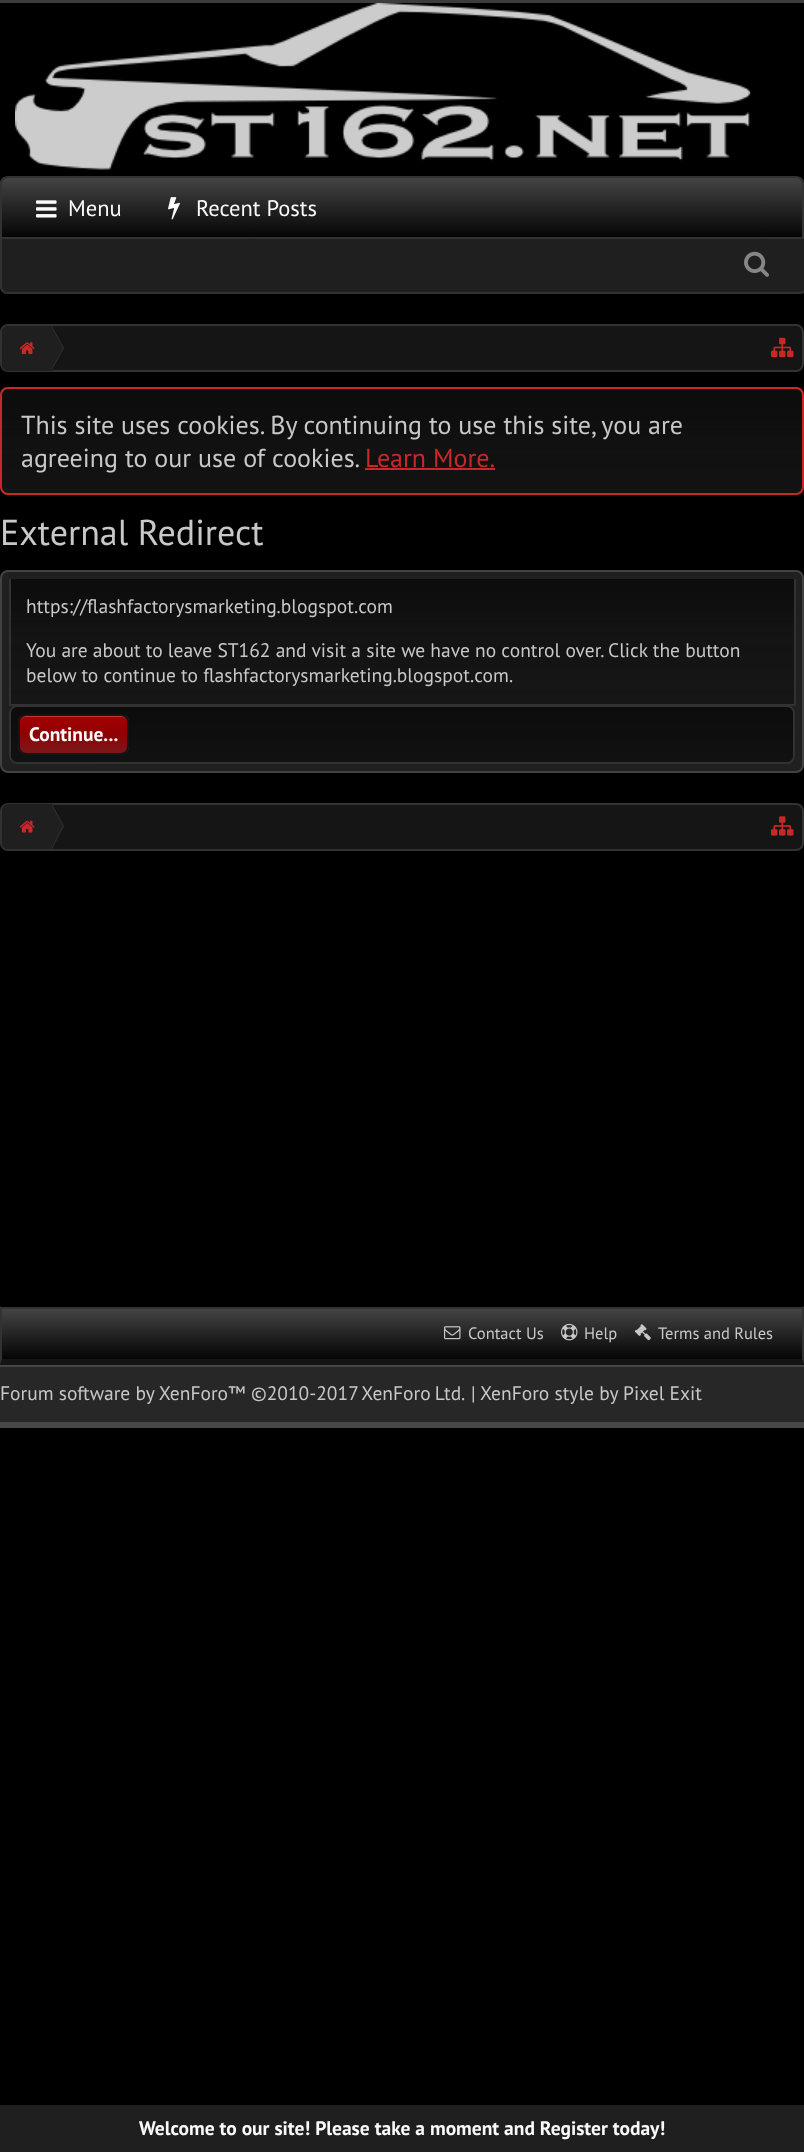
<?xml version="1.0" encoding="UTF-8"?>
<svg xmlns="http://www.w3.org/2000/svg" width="804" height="2152">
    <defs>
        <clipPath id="clip1"><path d="M 8 176 H 796 C 800.5 176 804 179.5 804 184 V 239 H 0 V 184 C 0 179.5 3.5 176 8 176 Z"/></clipPath>
        <linearGradient id="g1" gradientUnits="userSpaceOnUse" x1="402" y1="177" x2="402" y2="237"><stop offset="0" stop-color="#454545"/><stop offset="1" stop-color="#050505"/></linearGradient>
        <clipPath id="clip2"><rect x="2" y="326" width="801" height="45" rx="6"/></clipPath>
        <clipPath id="clip3"><rect x="18" y="714" width="111" height="41" rx="8"/></clipPath>
        <linearGradient id="g2" gradientUnits="userSpaceOnUse" x1="74" y1="716" x2="74" y2="753"><stop offset="0" stop-color="#A50104"/><stop offset="0.44" stop-color="#910002"/><stop offset="1" stop-color="#7C181A"/></linearGradient>
        <clipPath id="clip4"><rect x="2" y="804" width="801" height="45" rx="6"/></clipPath>
        <linearGradient id="g3" gradientUnits="userSpaceOnUse" x1="402" y1="1308" x2="402" y2="1359"><stop offset="0" stop-color="#454545"/><stop offset="1" stop-color="#050505"/></linearGradient>
    </defs>
    <rect width="100%" height="100%" fill="#000000"/>
    <rect x="0" y="0" width="804" height="3" fill="#3C3C3C"/>
    <image x="15" y="3" width="736" height="167" href="img_01.png"/>
    <g clip-path="url(#clip1)">
        <rect x="0" y="177" width="804" height="60" fill="url(#g1)"/>
    </g>
    <path d="M 8 177 H 796 C 800 177 803 180 803 184 V 238 H 1 V 184 C 1 180 4 177 8 177 Z" fill="none" stroke="#323232" stroke-width="2"/>
    <image x="36" y="200" width="21" height="18" href="img_02.png"/>
    <text x="68" y="216" font-family="PT Sans" font-size="22.5" fill="#FAFAFA">Menu</text>
    <image x="168" y="197" width="12" height="23" href="img_03.png"/>
    <text x="196" y="216" font-family="PT Sans" font-size="22.5" fill="#FAFAFA">Recent Posts</text>
    <path d="M 0 239 H 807 V 286 C 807 290.5 803.5 294 799 294 H 8 C 3.5 294 0 290.5 0 286 Z" fill="#1F1F1F"/>
    <path d="M 0 238 H 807 V 286 C 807 291 804 294 800 294 H 8 C 3 294 0 291 0 286 Z M 2 238 H 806 V 286 C 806 290 803 292 800 292 H 8 C 4 292 2 290 2 286 Z" fill="#323232" fill-rule="evenodd"/>
    <image x="744" y="251" width="25" height="26" href="img_04.png"/>
    <rect x="1" y="325" width="802" height="46" rx="7" fill="#151515" stroke="#323232" stroke-width="2"/>
    <g clip-path="url(#clip2)">
        <path d="M 8 326 H 53 V 372 H 8 C 4.5 372 2 369.5 2 366 V 332 C 2 328.5 4.5 326 8 326 Z" fill="#1F1F1F"/>
    </g>
    <image x="19" y="342" width="16" height="12" href="img_05.png"/>
    <path d="M 52 370 V 326 L 64 348 Z" fill="#323232"/>
    <path d="M 51 370 V 326 L 63 348 Z" fill="#1F1F1F"/>
    <image x="771" y="337" width="23" height="21" href="img_06.png"/>
    <rect x="0" y="387" width="804" height="108" rx="8" fill="#1F1F1F"/>
    <image x="0" y="388" width="804" height="107" href="img_07.png"/>
    <rect x="1" y="388" width="802" height="106" rx="7" fill="none" stroke="#C92828" stroke-width="2"/>
    <text font-family="PT Sans" font-size="26" fill="#C8C8C8">
        <tspan x="21" y="434">This site uses cookies. By continuing to use this site, you are</tspan>
        <tspan x="21" y="467">agreeing to our use of cookies.</tspan>
    </text>
    <text x="365" y="467" font-family="PT Sans" font-size="26" fill="#C92828">Learn More.</text>
    <rect x="365" y="468" width="130" height="2" fill="#C92828"/>
    <text x="0" y="545" font-family="PT Sans" font-size="36" fill="#C8C8C8">External Redirect</text>
    <rect x="1" y="571" width="802" height="201" rx="7" fill="#202020" stroke="#424242" stroke-width="2"/>
    <rect x="11" y="579" width="783" height="125" fill="#272727"/>
    <image x="11" y="579" width="783" height="125" href="img_08.png"/>
    <rect x="794" y="579" width="2" height="126" fill="#323232"/>
    <rect x="9" y="704" width="786" height="2" fill="#323232"/>
    <rect x="9" y="579" width="2" height="126" fill="#323232"/>
    <text x="26" y="613" font-family="PT Sans" font-size="19.5" fill="#C8C8C8">https://flashfactorysmarketing.blogspot.com</text>
    <text font-family="PT Sans" font-size="19.5" fill="#C8C8C8">
        <tspan x="26" y="657">You are about to leave ST162 and visit a site we have no control over. Click the button</tspan>
        <tspan x="26" y="682">below to continue to flashfactorysmarketing.blogspot.com.</tspan>
    </text>
    <image x="9" y="706" width="786" height="58" href="img_09.png"/>
    <rect x="10" y="706" width="784" height="57" rx="7" fill="none" stroke="#323232" stroke-width="2"/>
    <g clip-path="url(#clip3)">
        <rect x="18" y="716" width="111" height="37" fill="url(#g2)"/>
    </g>
    <path d="M 26 717 H 122 C 125 717 128 720 128 723 C 128 712 112 716 106 716 H 42 C 36 716 20 712 20 723 C 20 720 22 717 26 717 Z" fill="#C53535"/>
    <rect x="19" y="715" width="109" height="39" rx="7" fill="none" stroke="#151515" stroke-width="2"/>
    <text x="29" y="741" font-family="PT Sans" font-size="19.5" font-weight="700" fill="#FAFAFA">Continue...</text>
    <rect x="1" y="804" width="802" height="46" rx="7" fill="#151515" stroke="#323232" stroke-width="2"/>
    <g clip-path="url(#clip4)">
        <path d="M 8 804 H 53 V 851 H 8 C 4.5 851 2 848.5 2 845 V 810 C 2 806.5 4.5 804 8 804 Z" fill="#1F1F1F"/>
    </g>
    <image x="19" y="820" width="16" height="13" href="img_10.png"/>
    <path d="M 52 849 V 804 L 64 826 Z" fill="#323232"/>
    <path d="M 51 849 V 804 L 63 826 Z" fill="#1F1F1F"/>
    <image x="771" y="816" width="23" height="20" href="img_11.png"/>
    <rect x="0" y="2105" width="804" height="47" fill="#1F1F1F"/>
    <text x="139" y="2135" font-family="PT Sans" font-size="19.5" font-weight="700" fill="#FAFAFA">Welcome to our site! Please take a moment and Register today!</text>
    <rect x="2" y="1309" width="800" height="50" fill="url(#g3)"/>
    <rect x="0" y="1307" width="804" height="2" fill="#323232"/>
    <path d="M 804 1306 V 1365 L 802 1359 V 1308 Z" fill="#323232"/>
    <path d="M 804 1365 H 0 L 2 1359 H 802 Z" fill="#151515"/>
    <path d="M 0 1365 V 1306 L 2 1308 V 1359 Z" fill="#323232"/>
    <image x="444" y="1326" width="17" height="14" href="img_12.png"/>
    <text x="468" y="1339" font-family="PT Sans" font-size="16.5" fill="#C8C8C8">Contact Us</text>
    <image x="561" y="1323" width="17" height="18" href="img_13.png"/>
    <text x="584" y="1339" font-family="PT Sans" font-size="16.5" fill="#C8C8C8">Help</text>
    <image x="634" y="1324" width="17" height="17" href="img_14.png"/>
    <text x="658" y="1339" font-family="PT Sans" font-size="16.5" fill="#C8C8C8">Terms and Rules</text>
    <rect x="0" y="1367" width="804" height="55" fill="#272727"/>
    <rect x="0" y="1365" width="804" height="2" fill="#474747"/>
    <rect x="0" y="1422" width="804" height="6" fill="#474747"/>
    <text x="0" y="1400" font-family="PT Sans" font-size="19.5" fill="#C8C8C8">Forum software by XenForo™</text>
    <text x="251" y="1400" word-spacing="-1" font-family="PT Sans" font-size="19.5" fill="#C8C8C8">©2010-2017 XenForo Ltd.</text>
    <text x="471" y="1400" font-family="PT Sans" font-size="19.5" fill="#C8C8C8">|</text>
    <text x="480" y="1400" font-family="PT Sans" font-size="19.5" fill="#C8C8C8">XenForo style by Pixel Exit</text>
</svg>
